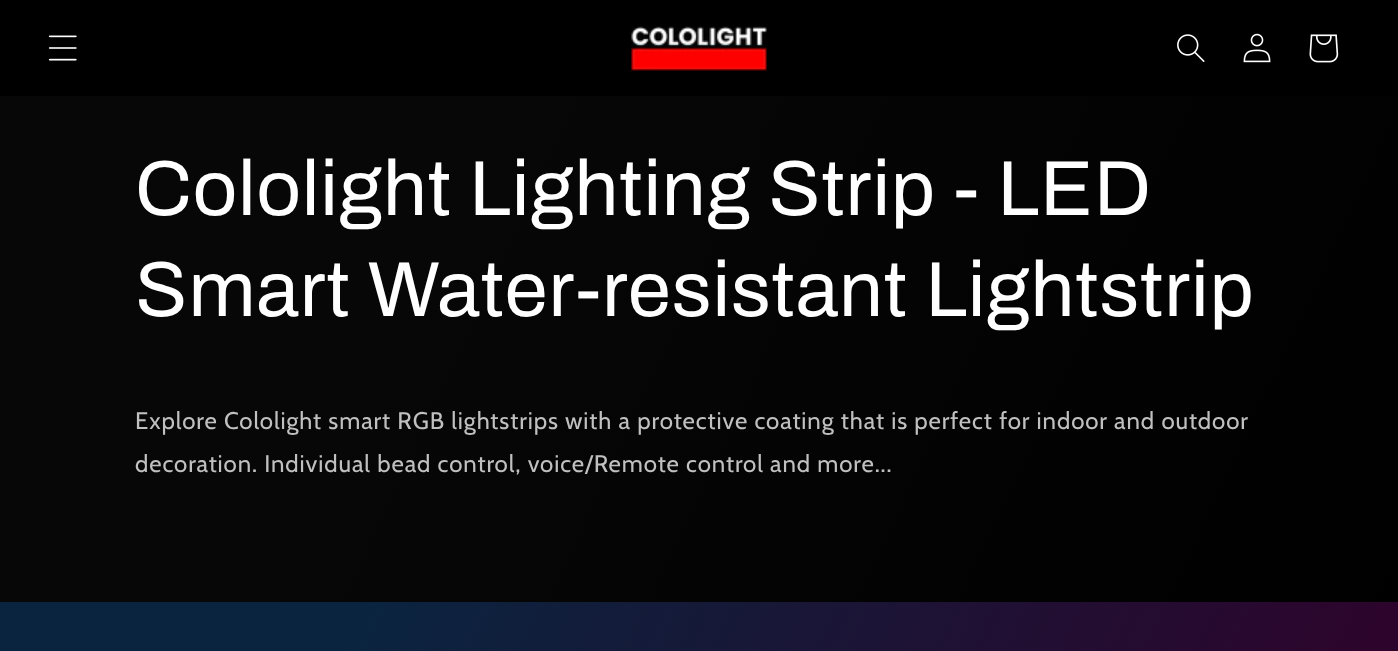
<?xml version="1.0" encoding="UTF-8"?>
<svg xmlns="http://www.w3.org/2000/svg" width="1398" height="651">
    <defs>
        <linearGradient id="g1" gradientUnits="userSpaceOnUse" x1="0.2" y1="-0.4" x2="1398" y2="651"><stop offset="0.31" stop-color="#070707"/><stop offset="0.99" stop-color="#000000"/></linearGradient>
        <linearGradient id="g2" gradientUnits="userSpaceOnUse" x1="0.2" y1="-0.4" x2="1398" y2="651"><stop offset="0.38" stop-color="#0A243F"/><stop offset="0.99" stop-color="#2D042C"/></linearGradient>
    </defs>
    <rect width="100%" height="100%" fill="#FFFFFF"/>
    <rect x="0" y="96" width="1398" height="506" fill="url(#g1)"/>
    <rect x="0" y="0" width="1398" height="96" fill="#000000"/>
    <image x="48" y="35" width="29" height="26" href="img_01.png"/>
    <image x="631" y="26" width="136" height="45" href="img_02.png"/>
    <image x="1177" y="34" width="28" height="28" href="img_03.png"/>
    <image x="1243" y="33" width="28" height="30" href="img_04.png"/>
    <image x="1309" y="34" width="30" height="29" href="img_05.png"/>
    <text font-family="Archivo" font-size="78" letter-spacing="0.9" fill="#FFFFFF">
        <tspan x="135" y="215">Cololight Lighting Strip - LED</tspan>
        <tspan x="135" y="316">Smart Water-resistant Lightstrip</tspan>
    </text>
    <text font-family="Cabin" font-size="24" letter-spacing="0.9" fill="#C0C0C0">
        <tspan x="135" y="429">Explore Cololight smart RGB lightstrips with a protective coating that is perfect for indoor and outdoor</tspan>
        <tspan x="135" y="472">decoration. Individual bead control, voice/Remote control and more...</tspan>
    </text>
    <rect x="0" y="602" width="1398" height="49" fill="url(#g2)"/>
</svg>
